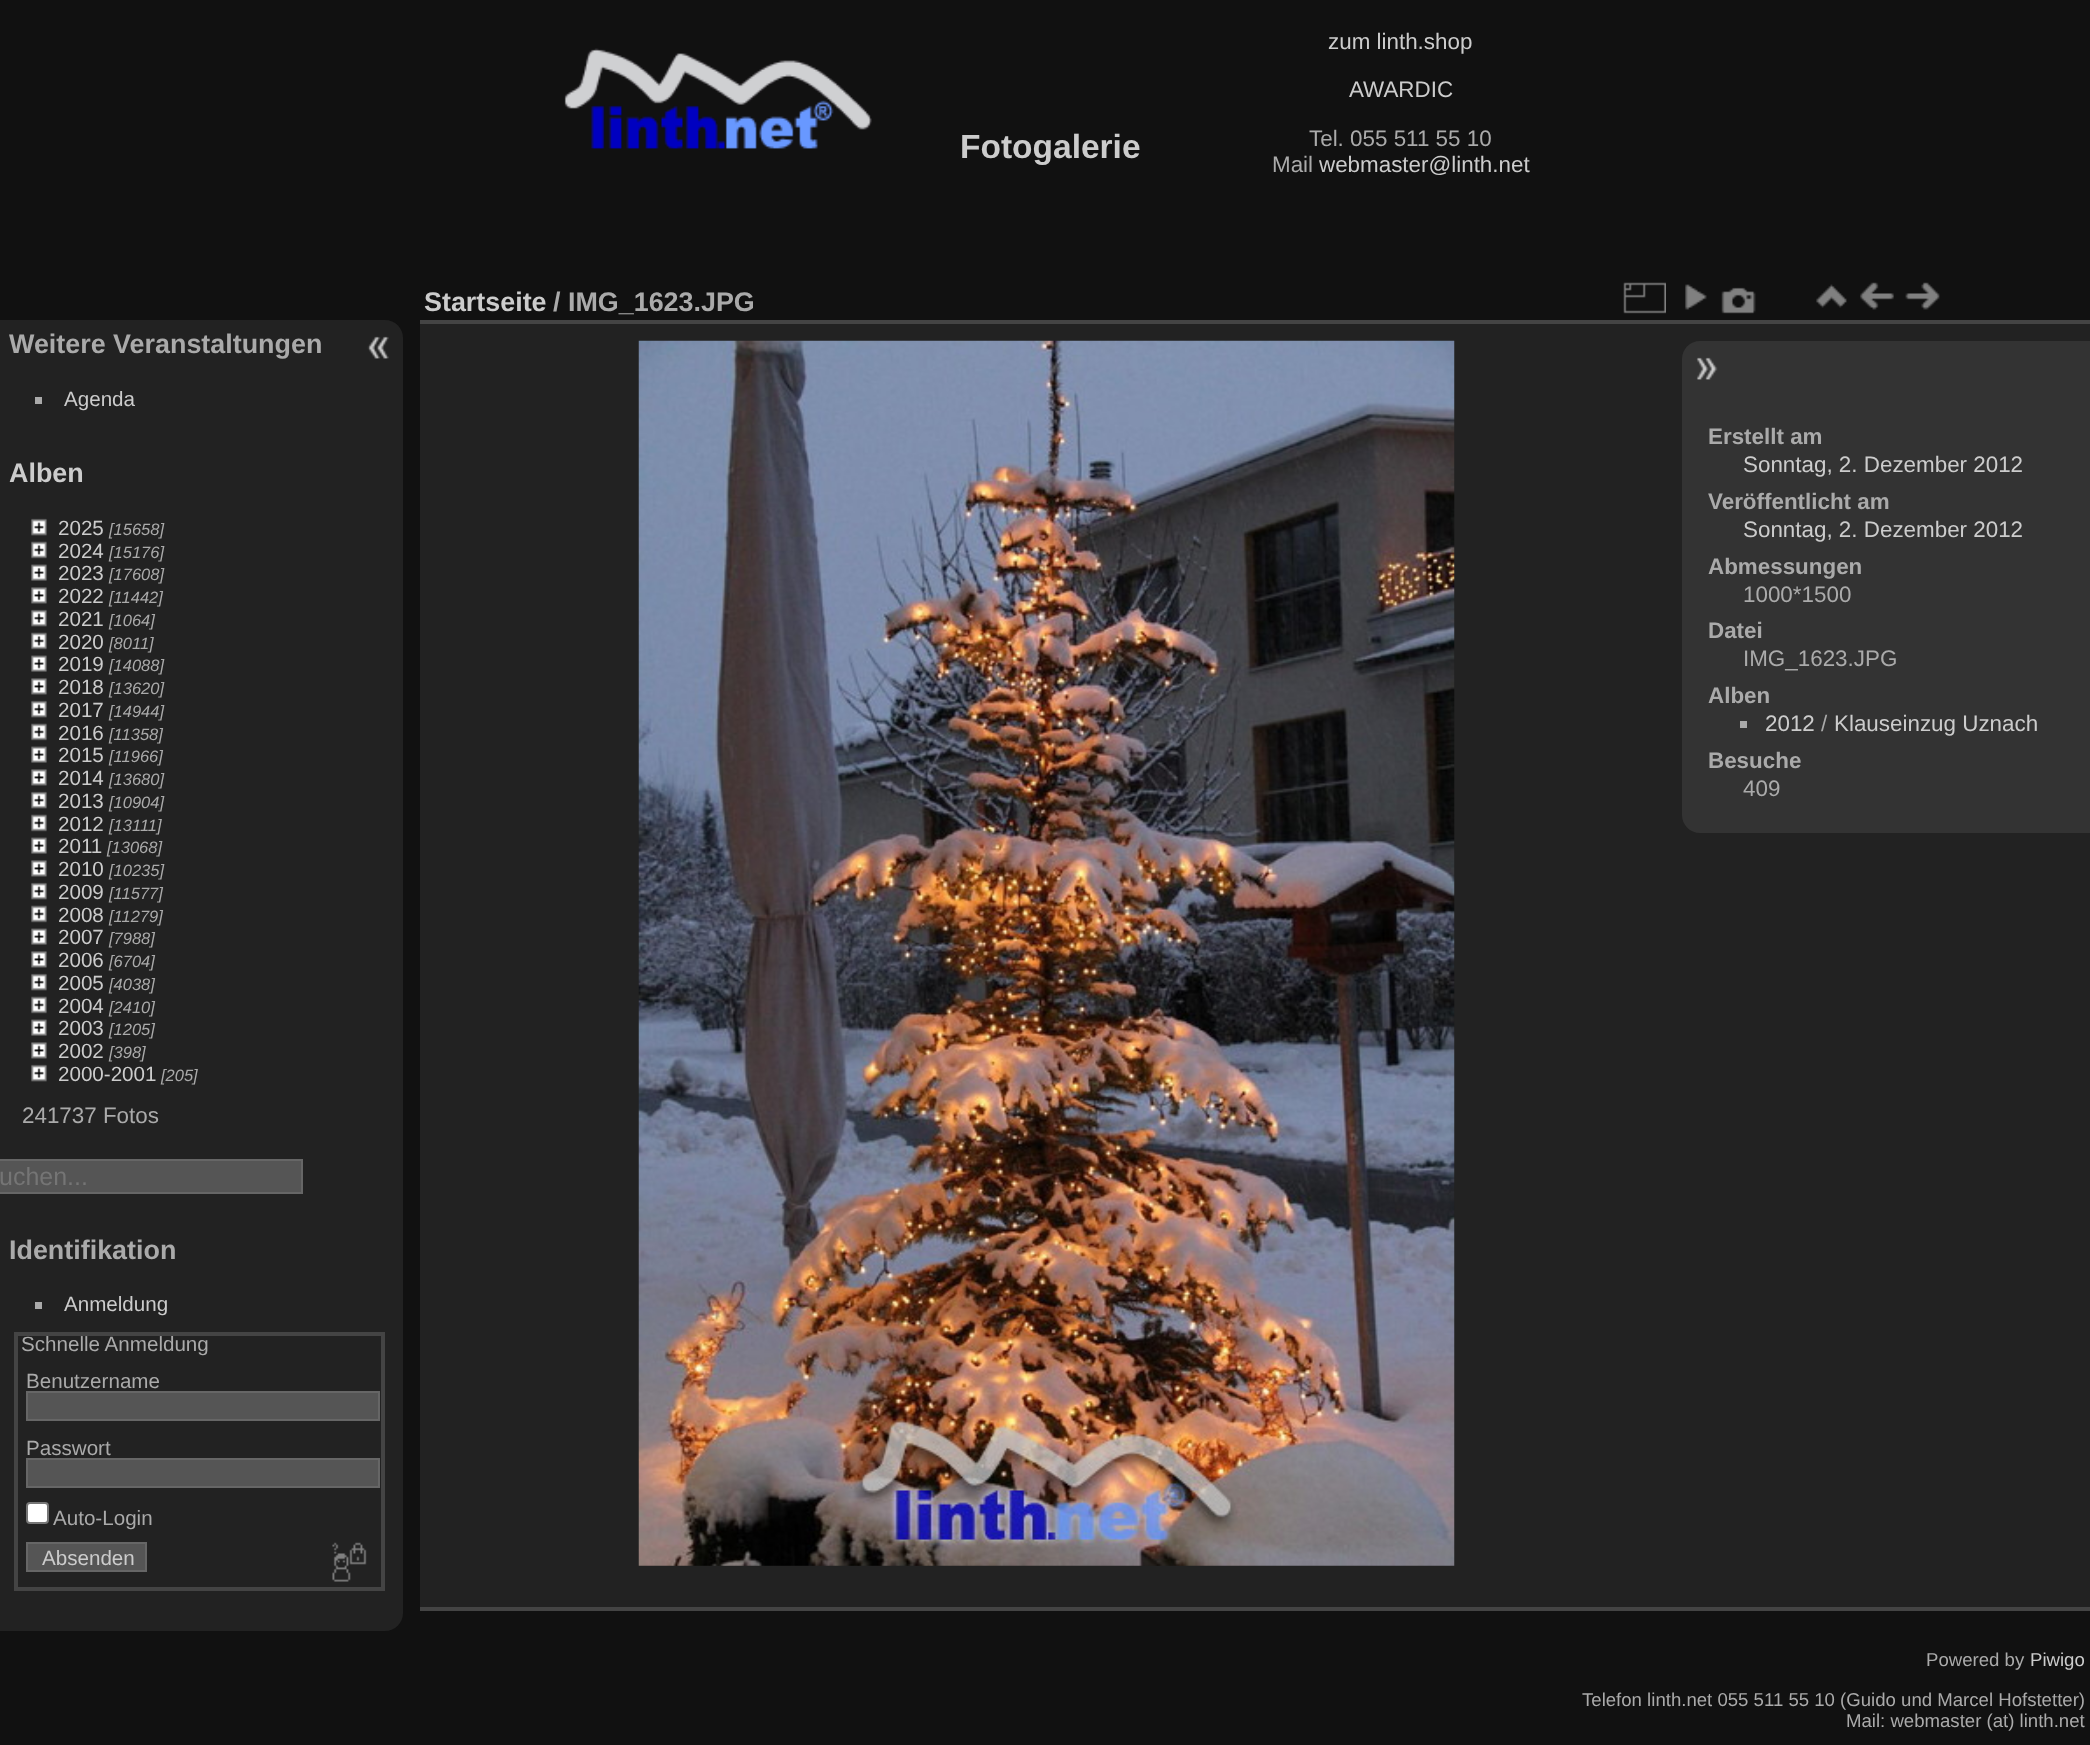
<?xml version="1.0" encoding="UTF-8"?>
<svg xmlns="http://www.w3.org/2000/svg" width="2090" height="1745">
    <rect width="100%" height="100%" fill="#111111"/>
    <image x="564" y="48" width="308" height="101" href="img_01.png"/>
    <text x="960" y="158" font-family="Liberation Sans" font-size="33.5" font-weight="700" fill="#CCCCCC">Fotogalerie</text>
    <text x="1328" y="49" font-family="Liberation Sans" font-size="22.4" fill="#CCCCCC">zum linth.shop</text>
    <text x="1349" y="97" font-family="Liberation Sans" font-size="22.4" fill="#CCCCCC">AWARDIC</text>
    <text x="1309" y="146" font-family="Liberation Sans" font-size="22.4" fill="#AAAAAA">Tel. 055 511 55 10</text>
    <text x="1272" y="172" font-family="Liberation Sans" font-size="22.4" fill="#AAAAAA">Mail</text>
    <text x="1319" y="172" font-family="Liberation Sans" font-size="22.4" fill="#CCCCCC">webmaster@linth.net</text>
    <path d="M 0 320 H 385 C 395 320 403 328 403 338 V 1613 C 403 1623 395 1631 385 1631 H 0 Z" fill="#222222"/>
    <text x="9" y="353" font-family="Liberation Sans" font-size="26.9" font-weight="700" fill="#AAAAAA">Weitere Veranstaltungen</text>
    <rect x="35" y="397" width="7" height="7" fill="#AAAAAA"/>
    <text x="64" y="406" font-family="Liberation Sans" font-size="20.6" fill="#CCCCCC">Agenda</text>
    <text x="9" y="482" font-family="Liberation Sans" font-size="26.9" font-weight="700" fill="#CCCCCC">Alben</text>
    <image x="31" y="518" width="16" height="18" href="img_02.png"/>
    <text x="58" y="535" font-family="Liberation Sans" font-size="20.6" fill="#CCCCCC">2025</text>
    <text x="109" y="535" font-family="Liberation Sans" font-size="16.5" font-style="italic" fill="#AAAAAA">[15658]</text>
    <image x="31" y="541" width="16" height="18" href="img_03.png"/>
    <text x="58" y="558" font-family="Liberation Sans" font-size="20.6" fill="#CCCCCC">2024</text>
    <text x="109" y="558" font-family="Liberation Sans" font-size="16.5" font-style="italic" fill="#AAAAAA">[15176]</text>
    <image x="31" y="564" width="16" height="17" href="img_04.png"/>
    <text x="58" y="580" font-family="Liberation Sans" font-size="20.6" fill="#CCCCCC">2023</text>
    <text x="109" y="580" font-family="Liberation Sans" font-size="16.5" font-style="italic" fill="#AAAAAA">[17608]</text>
    <image x="31" y="587" width="16" height="17" href="img_05.png"/>
    <text x="58" y="603" font-family="Liberation Sans" font-size="20.6" fill="#CCCCCC">2022</text>
    <text x="109" y="603" font-family="Liberation Sans" font-size="16.5" font-style="italic" fill="#AAAAAA">[11442]</text>
    <image x="31" y="609" width="16" height="18" href="img_02.png"/>
    <text x="58" y="626" font-family="Liberation Sans" font-size="20.6" fill="#CCCCCC">2021</text>
    <text x="109" y="626" font-family="Liberation Sans" font-size="16.5" font-style="italic" fill="#AAAAAA">[1064]</text>
    <image x="31" y="632" width="16" height="18" href="img_03.png"/>
    <text x="58" y="649" font-family="Liberation Sans" font-size="20.6" fill="#CCCCCC">2020</text>
    <text x="109" y="649" font-family="Liberation Sans" font-size="16.5" font-style="italic" fill="#AAAAAA">[8011]</text>
    <image x="31" y="655" width="16" height="17" href="img_04.png"/>
    <text x="58" y="671" font-family="Liberation Sans" font-size="20.6" fill="#CCCCCC">2019</text>
    <text x="109" y="671" font-family="Liberation Sans" font-size="16.5" font-style="italic" fill="#AAAAAA">[14088]</text>
    <image x="31" y="678" width="16" height="17" href="img_05.png"/>
    <text x="58" y="694" font-family="Liberation Sans" font-size="20.6" fill="#CCCCCC">2018</text>
    <text x="109" y="694" font-family="Liberation Sans" font-size="16.5" font-style="italic" fill="#AAAAAA">[13620]</text>
    <image x="31" y="700" width="16" height="18" href="img_02.png"/>
    <text x="58" y="717" font-family="Liberation Sans" font-size="20.6" fill="#CCCCCC">2017</text>
    <text x="109" y="717" font-family="Liberation Sans" font-size="16.5" font-style="italic" fill="#AAAAAA">[14944]</text>
    <image x="31" y="723" width="16" height="18" href="img_03.png"/>
    <text x="58" y="740" font-family="Liberation Sans" font-size="20.6" fill="#CCCCCC">2016</text>
    <text x="109" y="740" font-family="Liberation Sans" font-size="16.5" font-style="italic" fill="#AAAAAA">[11358]</text>
    <image x="31" y="746" width="16" height="17" href="img_04.png"/>
    <text x="58" y="762" font-family="Liberation Sans" font-size="20.6" fill="#CCCCCC">2015</text>
    <text x="109" y="762" font-family="Liberation Sans" font-size="16.5" font-style="italic" fill="#AAAAAA">[11966]</text>
    <image x="31" y="769" width="16" height="17" href="img_05.png"/>
    <text x="58" y="785" font-family="Liberation Sans" font-size="20.6" fill="#CCCCCC">2014</text>
    <text x="109" y="785" font-family="Liberation Sans" font-size="16.5" font-style="italic" fill="#AAAAAA">[13680]</text>
    <image x="31" y="791" width="16" height="18" href="img_02.png"/>
    <text x="58" y="808" font-family="Liberation Sans" font-size="20.6" fill="#CCCCCC">2013</text>
    <text x="109" y="808" font-family="Liberation Sans" font-size="16.5" font-style="italic" fill="#AAAAAA">[10904]</text>
    <image x="31" y="814" width="16" height="18" href="img_03.png"/>
    <text x="58" y="831" font-family="Liberation Sans" font-size="20.6" fill="#CCCCCC">2012</text>
    <text x="109" y="831" font-family="Liberation Sans" font-size="16.5" font-style="italic" fill="#AAAAAA">[13111]</text>
    <image x="31" y="837" width="16" height="17" href="img_04.png"/>
    <text x="58" y="853" font-family="Liberation Sans" font-size="20.6" fill="#CCCCCC">2011</text>
    <text x="107" y="853" font-family="Liberation Sans" font-size="16.5" font-style="italic" fill="#AAAAAA">[13068]</text>
    <image x="31" y="860" width="16" height="17" href="img_05.png"/>
    <text x="58" y="876" font-family="Liberation Sans" font-size="20.6" fill="#CCCCCC">2010</text>
    <text x="109" y="876" font-family="Liberation Sans" font-size="16.5" font-style="italic" fill="#AAAAAA">[10235]</text>
    <image x="31" y="882" width="16" height="18" href="img_02.png"/>
    <text x="58" y="899" font-family="Liberation Sans" font-size="20.6" fill="#CCCCCC">2009</text>
    <text x="109" y="899" font-family="Liberation Sans" font-size="16.5" font-style="italic" fill="#AAAAAA">[11577]</text>
    <image x="31" y="905" width="16" height="18" href="img_03.png"/>
    <text x="58" y="922" font-family="Liberation Sans" font-size="20.6" fill="#CCCCCC">2008</text>
    <text x="109" y="922" font-family="Liberation Sans" font-size="16.5" font-style="italic" fill="#AAAAAA">[11279]</text>
    <image x="31" y="928" width="16" height="17" href="img_04.png"/>
    <text x="58" y="944" font-family="Liberation Sans" font-size="20.6" fill="#CCCCCC">2007</text>
    <text x="109" y="944" font-family="Liberation Sans" font-size="16.5" font-style="italic" fill="#AAAAAA">[7988]</text>
    <image x="31" y="951" width="16" height="17" href="img_05.png"/>
    <text x="58" y="967" font-family="Liberation Sans" font-size="20.6" fill="#CCCCCC">2006</text>
    <text x="109" y="967" font-family="Liberation Sans" font-size="16.5" font-style="italic" fill="#AAAAAA">[6704]</text>
    <image x="31" y="973" width="16" height="18" href="img_02.png"/>
    <text x="58" y="990" font-family="Liberation Sans" font-size="20.6" fill="#CCCCCC">2005</text>
    <text x="109" y="990" font-family="Liberation Sans" font-size="16.5" font-style="italic" fill="#AAAAAA">[4038]</text>
    <image x="31" y="996" width="16" height="18" href="img_03.png"/>
    <text x="58" y="1013" font-family="Liberation Sans" font-size="20.6" fill="#CCCCCC">2004</text>
    <text x="109" y="1013" font-family="Liberation Sans" font-size="16.5" font-style="italic" fill="#AAAAAA">[2410]</text>
    <image x="31" y="1019" width="16" height="17" href="img_04.png"/>
    <text x="58" y="1035" font-family="Liberation Sans" font-size="20.6" fill="#CCCCCC">2003</text>
    <text x="109" y="1035" font-family="Liberation Sans" font-size="16.5" font-style="italic" fill="#AAAAAA">[1205]</text>
    <image x="31" y="1042" width="16" height="17" href="img_05.png"/>
    <text x="58" y="1058" font-family="Liberation Sans" font-size="20.6" fill="#CCCCCC">2002</text>
    <text x="109" y="1058" font-family="Liberation Sans" font-size="16.5" font-style="italic" fill="#AAAAAA">[398]</text>
    <image x="31" y="1064" width="16" height="18" href="img_02.png"/>
    <text x="58" y="1081" font-family="Liberation Sans" font-size="20.6" fill="#CCCCCC">2000-2001</text>
    <text x="161" y="1081" font-family="Liberation Sans" font-size="16.5" font-style="italic" fill="#AAAAAA">[205]</text>
    <text x="22" y="1123" font-family="Liberation Sans" font-size="22.4" fill="#AAAAAA">241737 Fotos</text>
    <rect x="-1" y="1160" width="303" height="33" fill="#555555" stroke="#666666" stroke-width="2"/>
    <text x="-1" y="1185" font-family="Liberation Sans" font-size="25" fill="#757575">uchen...</text>
    <text x="9" y="1259" font-family="Liberation Sans" font-size="26.9" font-weight="700" fill="#AAAAAA">Identifikation</text>
    <rect x="35" y="1302" width="7" height="7" fill="#AAAAAA"/>
    <text x="64" y="1311" font-family="Liberation Sans" font-size="20.6" fill="#CCCCCC">Anmeldung</text>
    <rect x="16" y="1334" width="367" height="255" fill="none" stroke="#444444" stroke-width="4"/>
    <text x="21" y="1351" font-family="Liberation Sans" font-size="20.6" fill="#AAAAAA">Schnelle Anmeldung</text>
    <text x="26" y="1388" font-family="Liberation Sans" font-size="20.6" fill="#AAAAAA">Benutzername</text>
    <rect x="27" y="1392" width="352" height="28" fill="#555555" stroke="#666666" stroke-width="2"/>
    <text x="26" y="1455" font-family="Liberation Sans" font-size="20.6" fill="#AAAAAA">Passwort</text>
    <rect x="27" y="1459" width="352" height="28" fill="#555555" stroke="#666666" stroke-width="2"/>
    <rect x="27" y="1503" width="21" height="20" rx="3" fill="#FFFFFF" stroke="#767676" stroke-width="2"/>
    <text x="53" y="1525" font-family="Liberation Sans" font-size="20.6" fill="#AAAAAA">Auto-Login</text>
    <rect x="27" y="1543" width="119" height="28" fill="#555555" stroke="#666666" stroke-width="2"/>
    <text x="42" y="1565" font-family="Liberation Sans" font-size="20.6" fill="#CCCCCC">Absenden</text>
    <image x="332" y="1542" width="35" height="40" href="img_06.png"/>
    <image x="367" y="336" width="22" height="23" href="img_07.png"/>
    <rect x="420" y="324" width="1670" height="1283" fill="#222222"/>
    <rect x="420" y="1607" width="1670" height="4" fill="#444444"/>
    <rect x="420" y="320" width="1670" height="4" fill="#444444"/>
    <text x="424" y="311" font-family="Liberation Sans" font-size="26.9" font-weight="700" fill="#CCCCCC">Startseite</text>
    <text x="553" y="311" font-family="Liberation Sans" font-size="26.9" font-weight="700" fill="#AAAAAA">/ IMG_1623.JPG</text>
    <image x="1623" y="282" width="43" height="32" href="img_08.png"/>
    <image x="1685" y="284" width="22" height="26" href="img_09.png"/>
    <image x="1721" y="287" width="35" height="27" href="img_10.png"/>
    <image x="1816" y="284" width="31" height="24" href="img_11.png"/>
    <image x="1860" y="282" width="34" height="28" href="img_12.png"/>
    <image x="1905" y="282" width="35" height="28" href="img_13.png"/>
    <image x="638" y="340" width="817" height="1226" href="img_14.png"/>
    <path d="M 1700 341 H 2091 V 833 H 1700 C 1690 833 1682 825 1682 815 V 359 C 1682 349 1690 341 1700 341 Z" fill="#333333"/>
    <image x="1696" y="357" width="22" height="23" href="img_15.png"/>
    <text x="1708" y="444" font-family="Liberation Sans" font-size="22.4" font-weight="700" fill="#AAAAAA">Erstellt am</text>
    <text x="1743" y="472" font-family="Liberation Sans" font-size="22.4" fill="#CCCCCC">Sonntag, 2. Dezember 2012</text>
    <text x="1708" y="509" font-family="Liberation Sans" font-size="22.4" font-weight="700" fill="#AAAAAA">Veröffentlicht am</text>
    <text x="1743" y="537" font-family="Liberation Sans" font-size="22.4" fill="#CCCCCC">Sonntag, 2. Dezember 2012</text>
    <text x="1708" y="574" font-family="Liberation Sans" font-size="22.4" font-weight="700" fill="#AAAAAA">Abmessungen</text>
    <text x="1743" y="602" font-family="Liberation Sans" font-size="22.4" fill="#AAAAAA">1000*1500</text>
    <text x="1708" y="638" font-family="Liberation Sans" font-size="22.4" font-weight="700" fill="#AAAAAA">Datei</text>
    <text x="1743" y="666" font-family="Liberation Sans" font-size="22.4" fill="#AAAAAA">IMG_1623.JPG</text>
    <text x="1708" y="703" font-family="Liberation Sans" font-size="22.4" font-weight="700" fill="#AAAAAA">Alben</text>
    <rect x="1740" y="721" width="7" height="7" fill="#AAAAAA"/>
    <text x="1765" y="731" font-family="Liberation Sans" font-size="22.4" fill="#CCCCCC">2012</text>
    <text x="1821" y="731" font-family="Liberation Sans" font-size="22.4" fill="#AAAAAA">/</text>
    <text x="1834" y="731" font-family="Liberation Sans" font-size="22.4" fill="#CCCCCC">Klauseinzug Uznach</text>
    <text x="1708" y="768" font-family="Liberation Sans" font-size="22.4" font-weight="700" fill="#AAAAAA">Besuche</text>
    <text x="1743" y="796" font-family="Liberation Sans" font-size="22.4" fill="#AAAAAA">409</text>
    <text x="1926" y="1666" font-family="Liberation Sans" font-size="18.6" fill="#AAAAAA">Powered by</text>
    <text x="2030" y="1666" font-family="Liberation Sans" font-size="18.6" fill="#CCCCCC">Piwigo</text>
    <text x="1582" y="1706" font-family="Liberation Sans" font-size="18.6" fill="#AAAAAA">Telefon linth.net 055 511 55 10 (Guido und Marcel Hofstetter)</text>
    <text x="1846" y="1727" font-family="Liberation Sans" font-size="18.6" fill="#AAAAAA">Mail: webmaster (at) linth.net</text>
</svg>
